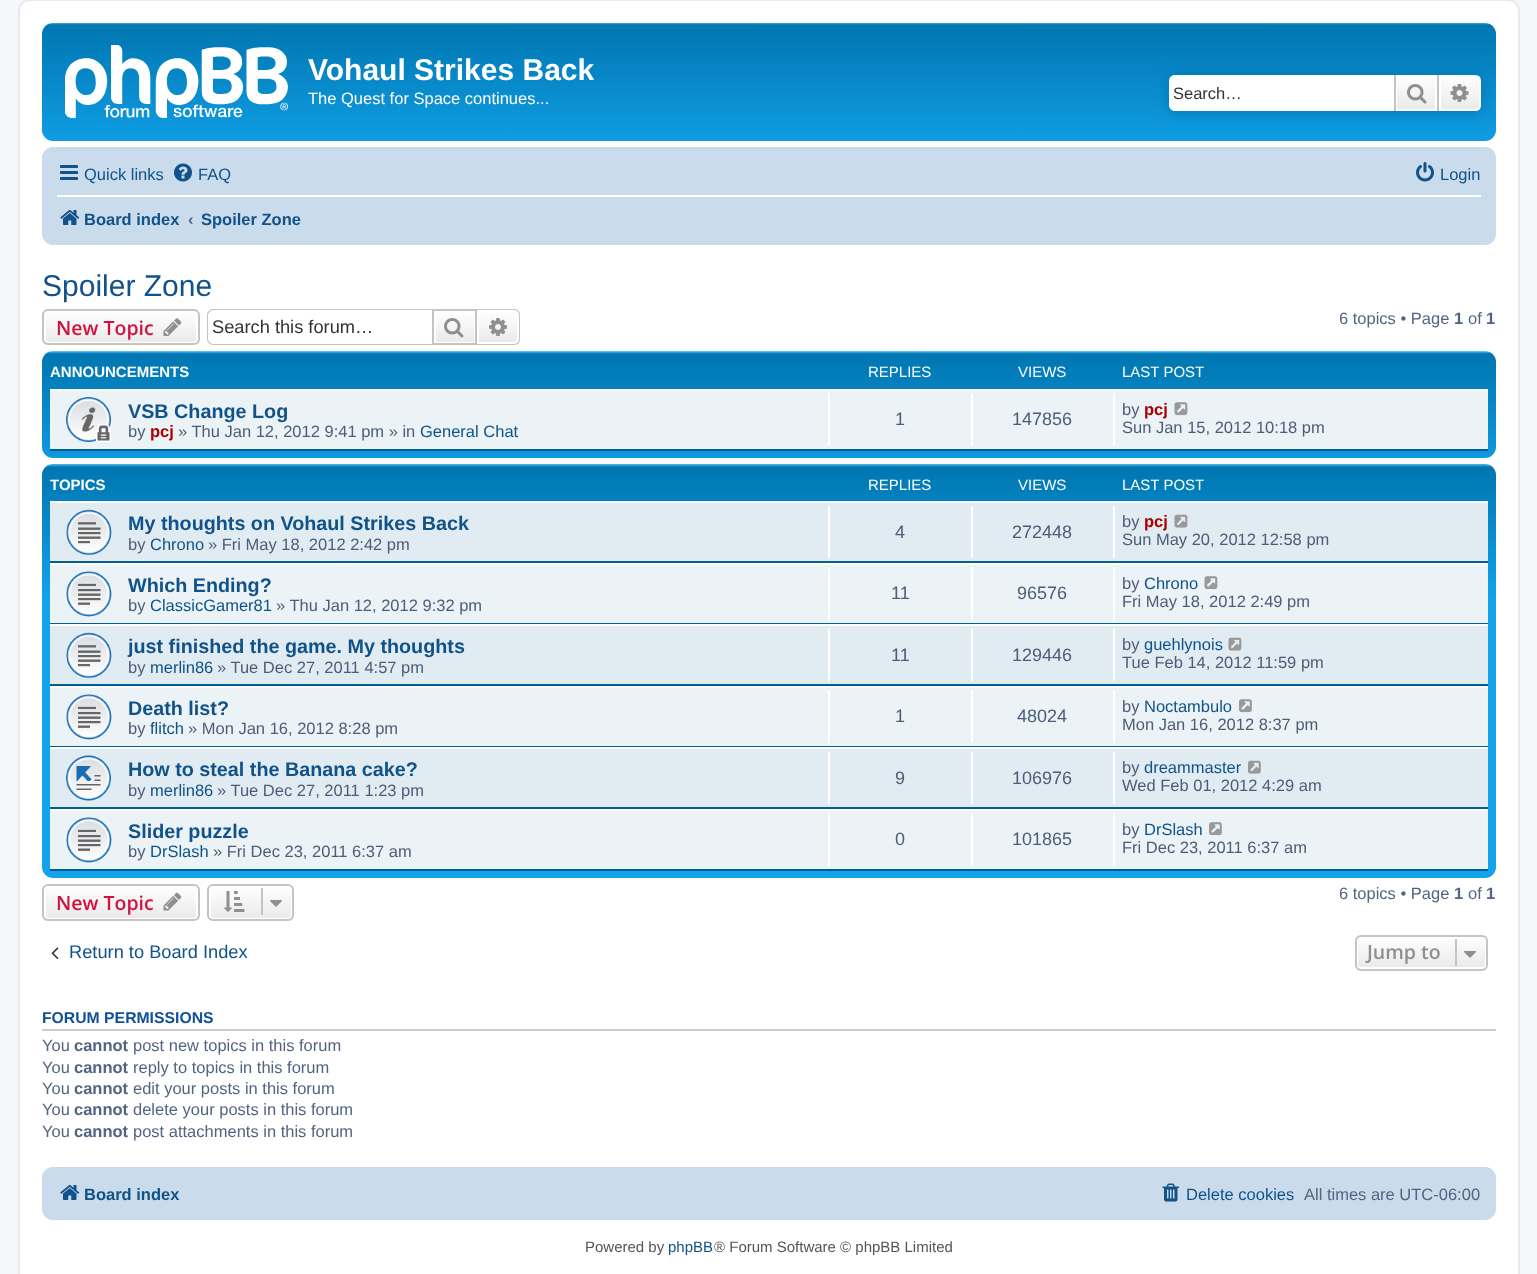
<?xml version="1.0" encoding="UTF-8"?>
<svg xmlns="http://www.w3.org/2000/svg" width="1537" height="1274">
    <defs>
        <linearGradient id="g1" gradientUnits="userSpaceOnUse" x1="769" y1="22" x2="769" y2="160"><stop offset="0" stop-color="#6ACEFF"/><stop offset="0.02" stop-color="#0076B1"/><stop offset="1" stop-color="#12A3EB"/></linearGradient>
        <filter id="blur1" x="-50%" y="-200%" width="200%" height="500%"><feGaussianBlur stdDeviation="7.5"/></filter>
        <linearGradient id="g2" gradientUnits="userSpaceOnUse" x1="1416" y1="75" x2="1416" y2="111"><stop offset="0" stop-color="#FFFFFF"/><stop offset="1" stop-color="#E9E9E9"/></linearGradient>
        <linearGradient id="g3" gradientUnits="userSpaceOnUse" x1="1460" y1="75" x2="1460" y2="111"><stop offset="0" stop-color="#FFFFFF"/><stop offset="1" stop-color="#E9E9E9"/></linearGradient>
        <clipPath id="clip1"><rect x="42" y="309" width="158" height="36" rx="6"/></clipPath>
        <linearGradient id="g4" gradientUnits="userSpaceOnUse" x1="121" y1="311" x2="121" y2="344"><stop offset="0" stop-color="#FFFFFF"/><stop offset="1" stop-color="#E9E9E9"/></linearGradient>
        <linearGradient id="g5" gradientUnits="userSpaceOnUse" x1="455" y1="311" x2="455" y2="344"><stop offset="0" stop-color="#FFFFFF"/><stop offset="1" stop-color="#E9E9E9"/></linearGradient>
        <linearGradient id="g6" gradientUnits="userSpaceOnUse" x1="498" y1="311" x2="498" y2="344"><stop offset="0" stop-color="#FFFFFF"/><stop offset="1" stop-color="#E9E9E9"/></linearGradient>
        <linearGradient id="g7" gradientUnits="userSpaceOnUse" x1="769" y1="351" x2="769" y2="489"><stop offset="0" stop-color="#6ACEFF"/><stop offset="0.02" stop-color="#0076B1"/><stop offset="1" stop-color="#12A3EB"/></linearGradient>
        <linearGradient id="g8" gradientUnits="userSpaceOnUse" x1="769" y1="463" x2="769" y2="878"><stop offset="0" stop-color="#6ACEFF"/><stop offset="0.01" stop-color="#0076B1"/><stop offset="0.33" stop-color="#12A3EB"/><stop offset="1" stop-color="#12A3EB"/></linearGradient>
        <clipPath id="clip2"><rect x="50" y="471" width="1438" height="30"/></clipPath>
        <clipPath id="clip3"><rect x="42" y="884" width="158" height="37" rx="6"/></clipPath>
        <linearGradient id="g9" gradientUnits="userSpaceOnUse" x1="121" y1="885" x2="121" y2="920"><stop offset="0" stop-color="#FFFFFF"/><stop offset="1" stop-color="#E9E9E9"/></linearGradient>
        <clipPath id="clip4"><rect x="207" y="884" width="87" height="37" rx="6"/></clipPath>
        <linearGradient id="g10" gradientUnits="userSpaceOnUse" x1="251" y1="885" x2="251" y2="920"><stop offset="0" stop-color="#FFFFFF"/><stop offset="1" stop-color="#E9E9E9"/></linearGradient>
        <clipPath id="clip5"><rect x="1355" y="935" width="133" height="36" rx="6"/></clipPath>
        <linearGradient id="g11" gradientUnits="userSpaceOnUse" x1="1421" y1="936" x2="1421" y2="969"><stop offset="0" stop-color="#FFFFFF"/><stop offset="1" stop-color="#E9E9E9"/></linearGradient>
    </defs>
    <rect width="100%" height="100%" fill="#F5F7FA"/>
    <rect x="19" y="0" width="1500" height="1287" rx="11" fill="#FFFFFF" stroke="#E6E9ED" stroke-width="2"/>
    <rect x="42" y="23" width="1454" height="118" rx="11" fill="url(#g1)"/>
    <image x="65" y="45" width="223" height="73" href="img_01.png"/>
    <text x="308" y="80" font-family="Liberation Sans" font-size="30" font-weight="700" fill="#FFFFFF">Vohaul Strikes Back</text>
    <text x="308" y="104" font-family="Liberation Sans" font-size="16.5" fill="#FFFFFF">The Quest for Space continues...</text>
    <rect x="1169" y="75" width="312" height="36" rx="6" fill="#0075B0" filter="url(#blur1)"/>
    <path d="M 1175 75 H 1394 V 111 H 1175 C 1171.5 111 1169 108.5 1169 105 V 81 C 1169 77.5 1171.5 75 1175 75 Z" fill="#FFFFFF"/>
    <text x="1173" y="99" font-family="Liberation Sans" font-size="16.5" fill="#333333">Search…</text>
    <rect x="1397" y="77" width="38" height="32" fill="url(#g2)"/>
    <rect x="1396" y="76" width="40" height="34" fill="none" stroke="#FFFFFF" stroke-width="2"/>
    <rect x="1437" y="75" width="2" height="36" fill="#C7C3BF"/>
    <rect x="1394" y="75" width="2" height="36" fill="#C7C3BF"/>
    <image x="1407" y="84" width="20" height="20" href="img_02.png"/>
    <path d="M 1440 76 H 1475 C 1478 76 1480 78 1480 81 V 105 C 1480 108 1478 110 1475 110 H 1440 Z" fill="url(#g3)" stroke="#FFFFFF" stroke-width="2"/>
    <image x="1450" y="84" width="19" height="18" href="img_03.png"/>
    <rect x="42" y="147" width="1454" height="98" rx="11" fill="#CADCEB"/>
    <image x="60" y="165" width="18" height="15" href="img_04.png"/>
    <text x="84" y="180" font-family="Liberation Sans" font-size="16.5" fill="#105289">Quick links</text>
    <image x="174" y="163" width="18" height="19" href="img_05.png"/>
    <text x="198" y="180" font-family="Liberation Sans" font-size="16.5" fill="#105289">FAQ</text>
    <image x="1416" y="162" width="18" height="20" href="img_06.png"/>
    <text x="1440" y="180" font-family="Liberation Sans" font-size="16.5" fill="#105289">Login</text>
    <rect x="57" y="195" width="1424" height="2" fill="#FFFFFF"/>
    <image x="60" y="210" width="20" height="15" href="img_07.png"/>
    <text x="84" y="225" font-family="Liberation Sans" font-size="16.5" font-weight="700" fill="#105289">Board index</text>
    <text x="188" y="225" font-family="Liberation Sans" font-size="16.5" font-weight="700" fill="#536482">‹</text>
    <text x="201" y="225" font-family="Liberation Sans" font-size="16.5" font-weight="700" fill="#105289">Spoiler Zone</text>
    <text x="42" y="296" font-family="Liberation Sans" font-size="30" fill="#105289">Spoiler Zone</text>
    <g clip-path="url(#clip1)">
        <rect x="42" y="311" width="158" height="33" fill="url(#g4)"/>
    </g>
    <rect x="45" y="312" width="152" height="31" rx="4" fill="none" stroke="#FFFFFF" stroke-width="2"/>
    <rect x="43" y="310" width="156" height="34" rx="5" fill="none" stroke="#C7C3BF" stroke-width="2"/>
    <text x="56" y="335" font-family="Open Sans" font-size="19.5" font-weight="600" fill="#D31141">New Topic</text>
    <image x="163" y="318" width="19" height="18" href="img_08.png"/>
    <path d="M 213 309 H 432 V 345 H 213 C 210 345 207 342 207 339 V 315 C 207 312 210 309 213 309 Z M 213 310 H 432 V 344 H 213 C 211 344 208 341 208 339 V 315 C 208 313 211 310 213 310 Z" fill="#C7C3BF" fill-rule="evenodd"/>
    <text x="212" y="333" font-family="Liberation Sans" font-size="18.25" fill="#333333">Search this forum…</text>
    <rect x="436" y="315" width="38" height="27" fill="url(#g5)"/>
    <rect x="433" y="310" width="43" height="34" fill="none" stroke="#C7C3BF" stroke-width="2"/>
    <image x="444" y="318" width="20" height="20" href="img_09.png"/>
    <path d="M 478 312 H 514 C 516 312 518 314 518 316 V 339 C 518 341 516 343 514 343 H 478 Z" fill="url(#g6)" stroke="#FFFFFF" stroke-width="2"/>
    <path d="M 477 309 H 514 C 518 309 520 312 520 315 V 339 C 520 342 518 345 514 345 H 477 Z M 477 310 H 514 C 517 310 519 313 519 315 V 339 C 519 341 517 344 514 344 H 477 Z" fill="#C7C3BF" fill-rule="evenodd"/>
    <image x="489" y="318" width="18" height="18" href="img_10.png"/>
    <text x="1339" y="324" font-family="Liberation Sans" font-size="16.5" fill="#536482">6 topics • Page</text>
    <text x="1454" y="324" font-family="Liberation Sans" font-size="16.5" font-weight="700" fill="#536482">1</text>
    <text x="1468" y="324" font-family="Liberation Sans" font-size="16.5" fill="#536482">of</text>
    <text x="1486" y="324" font-family="Liberation Sans" font-size="16.5" font-weight="700" fill="#536482">1</text>
    <rect x="42" y="351" width="1454" height="107" rx="11" fill="url(#g7)"/>
    <text x="50" y="377" font-family="Liberation Sans" font-size="15" font-weight="700" fill="#FFFFFF">ANNOUNCEMENTS</text>
    <text x="868" y="377" font-family="Liberation Sans" font-size="15" fill="#FFFFFF">REPLIES</text>
    <text x="1018" y="377" font-family="Liberation Sans" font-size="15" fill="#FFFFFF">VIEWS</text>
    <text x="1122" y="377" font-family="Liberation Sans" font-size="15" fill="#FFFFFF">LAST POST</text>
    <rect x="50" y="391" width="1438" height="58" fill="#ECF3F7"/>
    <rect x="50" y="389" width="1438" height="2" fill="#FFFFFF"/>
    <rect x="50" y="449" width="1438" height="2" fill="#00608F"/>
    <image x="66" y="397" width="45" height="45" href="img_11.png"/>
    <text x="128" y="418" font-family="Liberation Sans" font-size="19.75" font-weight="700" fill="#105289">VSB Change Log</text>
    <text x="128" y="437" font-family="Liberation Sans" font-size="16.5" fill="#4C5D77">by</text>
    <text x="150" y="437" font-family="Liberation Sans" font-size="16.5" font-weight="700" fill="#AA0000">pcj</text>
    <text x="178" y="437" font-family="Liberation Sans" font-size="16.5" fill="#4C5D77">» Thu Jan 12, 2012 9:41 pm » in</text>
    <text x="420" y="437" font-family="Liberation Sans" font-size="16.5" fill="#105289">General Chat</text>
    <rect x="828" y="393" width="2" height="53" fill="#FFFFFF"/>
    <text x="895" y="425" font-family="Liberation Sans" font-size="18" fill="#4C5D77">1</text>
    <rect x="971" y="393" width="2" height="53" fill="#FFFFFF"/>
    <text x="1012" y="425" font-family="Liberation Sans" font-size="18" fill="#4C5D77">147856</text>
    <rect x="1113" y="393" width="2" height="53" fill="#FFFFFF"/>
    <text x="1122" y="415" font-family="Liberation Sans" font-size="16.5" fill="#4C5D77">by</text>
    <text x="1144" y="415" font-family="Liberation Sans" font-size="16.5" font-weight="700" fill="#AA0000">pcj</text>
    <image x="1174" y="402" width="14" height="14" href="img_12.png"/>
    <text x="1122" y="433" font-family="Liberation Sans" font-size="16.5" fill="#4C5D77">Sun Jan 15, 2012 10:18 pm</text>
    <rect x="42" y="464" width="1454" height="414" rx="11" fill="url(#g8)"/>
    <g clip-path="url(#clip2)">
        <text x="50" y="490" font-family="Liberation Sans" font-size="15" font-weight="700" fill="#FFFFFF">TOPICS</text>
    </g>
    <text x="868" y="490" font-family="Liberation Sans" font-size="15" fill="#FFFFFF">REPLIES</text>
    <text x="1018" y="490" font-family="Liberation Sans" font-size="15" fill="#FFFFFF">VIEWS</text>
    <text x="1122" y="490" font-family="Liberation Sans" font-size="15" fill="#FFFFFF">LAST POST</text>
    <rect x="50" y="503" width="1438" height="58" fill="#E1EBF2"/>
    <rect x="50" y="501" width="1438" height="2" fill="#FFFFFF"/>
    <rect x="50" y="561" width="1438" height="2" fill="#00608F"/>
    <image x="66" y="509" width="46" height="47" href="img_13.png"/>
    <text x="128" y="530" font-family="Liberation Sans" font-size="19.75" font-weight="700" fill="#105289">My thoughts on Vohaul Strikes Back</text>
    <text x="128" y="550" font-family="Liberation Sans" font-size="16.5" fill="#4C5D77">by</text>
    <text x="150" y="550" font-family="Liberation Sans" font-size="16.5" fill="#105289">Chrono</text>
    <text x="208" y="550" font-family="Liberation Sans" font-size="16.5" fill="#4C5D77">» Fri May 18, 2012 2:42 pm</text>
    <rect x="828" y="506" width="2" height="52" fill="#FFFFFF"/>
    <text x="895" y="538" font-family="Liberation Sans" font-size="18" fill="#4C5D77">4</text>
    <rect x="971" y="506" width="2" height="52" fill="#FFFFFF"/>
    <text x="1012" y="538" font-family="Liberation Sans" font-size="18" fill="#4C5D77">272448</text>
    <rect x="1113" y="506" width="2" height="52" fill="#FFFFFF"/>
    <text x="1122" y="527" font-family="Liberation Sans" font-size="16.5" fill="#4C5D77">by</text>
    <text x="1144" y="527" font-family="Liberation Sans" font-size="16.5" font-weight="700" fill="#AA0000">pcj</text>
    <image x="1174" y="514" width="14" height="14" href="img_14.png"/>
    <text x="1122" y="545" font-family="Liberation Sans" font-size="16.5" fill="#4C5D77">Sun May 20, 2012 12:58 pm</text>
    <rect x="50" y="565" width="1438" height="58" fill="#ECF3F7"/>
    <rect x="50" y="563" width="1438" height="2" fill="#FFFFFF"/>
    <rect x="50" y="623" width="1438" height="1" fill="#00608F"/>
    <image x="66" y="571" width="46" height="46" href="img_15.png"/>
    <text x="128" y="592" font-family="Liberation Sans" font-size="19.75" font-weight="700" fill="#105289">Which Ending?</text>
    <text x="128" y="611" font-family="Liberation Sans" font-size="16.5" fill="#4C5D77">by</text>
    <text x="150" y="611" font-family="Liberation Sans" font-size="16.5" fill="#105289">ClassicGamer81</text>
    <text x="276" y="611" font-family="Liberation Sans" font-size="16.5" fill="#4C5D77">» Thu Jan 12, 2012 9:32 pm</text>
    <rect x="828" y="567" width="2" height="53" fill="#FFFFFF"/>
    <text x="891" y="599" font-family="Liberation Sans" font-size="18" fill="#4C5D77">11</text>
    <rect x="971" y="567" width="2" height="53" fill="#FFFFFF"/>
    <text x="1017" y="599" font-family="Liberation Sans" font-size="18" fill="#4C5D77">96576</text>
    <rect x="1113" y="567" width="2" height="53" fill="#FFFFFF"/>
    <text x="1122" y="589" font-family="Liberation Sans" font-size="16.5" fill="#4C5D77">by</text>
    <text x="1144" y="589" font-family="Liberation Sans" font-size="16.5" fill="#105289">Chrono</text>
    <image x="1204" y="576" width="14" height="14" href="img_12.png"/>
    <text x="1122" y="607" font-family="Liberation Sans" font-size="16.5" fill="#4C5D77">Fri May 18, 2012 2:49 pm</text>
    <rect x="50" y="626" width="1438" height="58" fill="#E1EBF2"/>
    <rect x="50" y="624" width="1438" height="2" fill="#FFFFFF"/>
    <rect x="50" y="684" width="1438" height="2" fill="#00608F"/>
    <image x="66" y="632" width="46" height="47" href="img_13.png"/>
    <text x="128" y="653" font-family="Liberation Sans" font-size="19.75" font-weight="700" fill="#105289">just finished the game. My thoughts</text>
    <text x="128" y="673" font-family="Liberation Sans" font-size="16.5" fill="#4C5D77">by</text>
    <text x="150" y="673" font-family="Liberation Sans" font-size="16.5" fill="#105289">merlin86</text>
    <text x="217" y="673" font-family="Liberation Sans" font-size="16.5" fill="#4C5D77">» Tue Dec 27, 2011 4:57 pm</text>
    <rect x="828" y="629" width="2" height="52" fill="#FFFFFF"/>
    <text x="891" y="661" font-family="Liberation Sans" font-size="18" fill="#4C5D77">11</text>
    <rect x="971" y="629" width="2" height="52" fill="#FFFFFF"/>
    <text x="1012" y="661" font-family="Liberation Sans" font-size="18" fill="#4C5D77">129446</text>
    <rect x="1113" y="629" width="2" height="52" fill="#FFFFFF"/>
    <text x="1122" y="650" font-family="Liberation Sans" font-size="16.5" fill="#4C5D77">by</text>
    <text x="1144" y="650" font-family="Liberation Sans" font-size="16.5" fill="#105289">guehlynois</text>
    <image x="1228" y="637" width="14" height="14" href="img_14.png"/>
    <text x="1122" y="668" font-family="Liberation Sans" font-size="16.5" fill="#4C5D77">Tue Feb 14, 2012 11:59 pm</text>
    <rect x="50" y="688" width="1438" height="58" fill="#ECF3F7"/>
    <rect x="50" y="686" width="1438" height="2" fill="#FFFFFF"/>
    <rect x="50" y="746" width="1438" height="1" fill="#00608F"/>
    <image x="66" y="694" width="46" height="46" href="img_15.png"/>
    <text x="128" y="715" font-family="Liberation Sans" font-size="19.75" font-weight="700" fill="#105289">Death list?</text>
    <text x="128" y="734" font-family="Liberation Sans" font-size="16.5" fill="#4C5D77">by</text>
    <text x="150" y="734" font-family="Liberation Sans" font-size="16.5" fill="#105289">flitch</text>
    <text x="188" y="734" font-family="Liberation Sans" font-size="16.5" fill="#4C5D77">» Mon Jan 16, 2012 8:28 pm</text>
    <rect x="828" y="690" width="2" height="53" fill="#FFFFFF"/>
    <text x="895" y="722" font-family="Liberation Sans" font-size="18" fill="#4C5D77">1</text>
    <rect x="971" y="690" width="2" height="53" fill="#FFFFFF"/>
    <text x="1017" y="722" font-family="Liberation Sans" font-size="18" fill="#4C5D77">48024</text>
    <rect x="1113" y="690" width="2" height="53" fill="#FFFFFF"/>
    <text x="1122" y="712" font-family="Liberation Sans" font-size="16.5" fill="#4C5D77">by</text>
    <text x="1144" y="712" font-family="Liberation Sans" font-size="16.5" fill="#105289">Noctambulo</text>
    <image x="1239" y="699" width="13" height="14" href="img_16.png"/>
    <text x="1122" y="730" font-family="Liberation Sans" font-size="16.5" fill="#4C5D77">Mon Jan 16, 2012 8:37 pm</text>
    <rect x="50" y="749" width="1438" height="58" fill="#E1EBF2"/>
    <rect x="50" y="747" width="1438" height="2" fill="#FFFFFF"/>
    <rect x="50" y="807" width="1438" height="2" fill="#00608F"/>
    <image x="66" y="755" width="45" height="46" href="img_17.png"/>
    <text x="128" y="776" font-family="Liberation Sans" font-size="19.75" font-weight="700" fill="#105289">How to steal the Banana cake?</text>
    <text x="128" y="796" font-family="Liberation Sans" font-size="16.5" fill="#4C5D77">by</text>
    <text x="150" y="796" font-family="Liberation Sans" font-size="16.5" fill="#105289">merlin86</text>
    <text x="217" y="796" font-family="Liberation Sans" font-size="16.5" fill="#4C5D77">» Tue Dec 27, 2011 1:23 pm</text>
    <rect x="828" y="752" width="2" height="52" fill="#FFFFFF"/>
    <text x="895" y="784" font-family="Liberation Sans" font-size="18" fill="#4C5D77">9</text>
    <rect x="971" y="752" width="2" height="52" fill="#FFFFFF"/>
    <text x="1012" y="784" font-family="Liberation Sans" font-size="18" fill="#4C5D77">106976</text>
    <rect x="1113" y="752" width="2" height="52" fill="#FFFFFF"/>
    <text x="1122" y="773" font-family="Liberation Sans" font-size="16.5" fill="#4C5D77">by</text>
    <text x="1144" y="773" font-family="Liberation Sans" font-size="16.5" fill="#105289">dreammaster</text>
    <image x="1248" y="760" width="13" height="14" href="img_18.png"/>
    <text x="1122" y="791" font-family="Liberation Sans" font-size="16.5" fill="#4C5D77">Wed Feb 01, 2012 4:29 am</text>
    <rect x="50" y="811" width="1438" height="58" fill="#ECF3F7"/>
    <rect x="50" y="809" width="1438" height="2" fill="#FFFFFF"/>
    <rect x="50" y="869" width="1438" height="2" fill="#00608F"/>
    <image x="66" y="817" width="46" height="46" href="img_15.png"/>
    <text x="128" y="838" font-family="Liberation Sans" font-size="19.75" font-weight="700" fill="#105289">Slider puzzle</text>
    <text x="128" y="857" font-family="Liberation Sans" font-size="16.5" fill="#4C5D77">by</text>
    <text x="150" y="857" font-family="Liberation Sans" font-size="16.5" fill="#105289">DrSlash</text>
    <text x="213" y="857" font-family="Liberation Sans" font-size="16.5" fill="#4C5D77">» Fri Dec 23, 2011 6:37 am</text>
    <rect x="828" y="813" width="2" height="53" fill="#FFFFFF"/>
    <text x="895" y="845" font-family="Liberation Sans" font-size="18" fill="#4C5D77">0</text>
    <rect x="971" y="813" width="2" height="53" fill="#FFFFFF"/>
    <text x="1012" y="845" font-family="Liberation Sans" font-size="18" fill="#4C5D77">101865</text>
    <rect x="1113" y="813" width="2" height="53" fill="#FFFFFF"/>
    <text x="1122" y="835" font-family="Liberation Sans" font-size="16.5" fill="#4C5D77">by</text>
    <text x="1144" y="835" font-family="Liberation Sans" font-size="16.5" fill="#105289">DrSlash</text>
    <image x="1209" y="822" width="13" height="14" href="img_16.png"/>
    <text x="1122" y="853" font-family="Liberation Sans" font-size="16.5" fill="#4C5D77">Fri Dec 23, 2011 6:37 am</text>
    <g clip-path="url(#clip3)">
        <rect x="42" y="885" width="158" height="35" fill="url(#g9)"/>
    </g>
    <rect x="45" y="886" width="152" height="33" rx="4" fill="none" stroke="#FFFFFF" stroke-width="2"/>
    <rect x="43" y="885" width="156" height="35" rx="5" fill="none" stroke="#C7C3BF" stroke-width="2"/>
    <text x="56" y="910" font-family="Open Sans" font-size="19.5" font-weight="600" fill="#D31141">New Topic</text>
    <image x="163" y="892" width="19" height="19" href="img_19.png"/>
    <g clip-path="url(#clip4)">
        <rect x="207" y="885" width="87" height="35" fill="url(#g10)"/>
    </g>
    <rect x="210" y="886" width="82" height="33" rx="4" fill="none" stroke="#FFFFFF" stroke-width="2"/>
    <rect x="208" y="885" width="85" height="35" rx="5" fill="none" stroke="#C7C3BF" stroke-width="2"/>
    <image x="224" y="891" width="21" height="21" href="img_20.png"/>
    <rect x="261" y="888" width="2" height="27" fill="#C7C3BF"/>
    <image x="270" y="900" width="12" height="7" href="img_21.png"/>
    <text x="1339" y="899" font-family="Liberation Sans" font-size="16.5" fill="#536482">6 topics • Page</text>
    <text x="1454" y="899" font-family="Liberation Sans" font-size="16.5" font-weight="700" fill="#536482">1</text>
    <text x="1468" y="899" font-family="Liberation Sans" font-size="16.5" fill="#536482">of</text>
    <text x="1486" y="899" font-family="Liberation Sans" font-size="16.5" font-weight="700" fill="#536482">1</text>
    <image x="51" y="947" width="8" height="12" href="img_22.png"/>
    <text x="69" y="958" font-family="Liberation Sans" font-size="18.25" fill="#105289">Return to Board Index</text>
    <g clip-path="url(#clip5)">
        <rect x="1355" y="936" width="133" height="33" fill="url(#g11)"/>
    </g>
    <rect x="1357" y="937" width="129" height="31" rx="4" fill="none" stroke="#FFFFFF" stroke-width="2"/>
    <rect x="1356" y="936" width="131" height="34" rx="5" fill="none" stroke="#C7C3BF" stroke-width="2"/>
    <text x="1367" y="959" font-family="Open Sans" font-size="19.5" font-weight="600" fill="#8F8F8F">Jump to</text>
    <rect x="1455" y="939" width="2" height="27" fill="#C7C3BF"/>
    <image x="1464" y="951" width="12" height="7" href="img_23.png"/>
    <rect x="42" y="1029" width="1454" height="2" fill="#CCCCCC"/>
    <text x="42" y="1023" font-family="Liberation Sans" font-size="15.75" font-weight="700" fill="#115098">FORUM PERMISSIONS</text>
    <text x="42" y="1051" font-family="Liberation Sans" font-size="16.5" fill="#536482">You</text>
    <text x="74" y="1051" font-family="Liberation Sans" font-size="16.5" font-weight="700" fill="#536482">cannot</text>
    <text x="133" y="1051" font-family="Liberation Sans" font-size="16.5" fill="#536482">post new topics in this forum</text>
    <text x="42" y="1073" font-family="Liberation Sans" font-size="16.5" fill="#536482">You</text>
    <text x="74" y="1073" font-family="Liberation Sans" font-size="16.5" font-weight="700" fill="#536482">cannot</text>
    <text x="133" y="1073" font-family="Liberation Sans" font-size="16.5" fill="#536482">reply to topics in this forum</text>
    <text x="42" y="1094" font-family="Liberation Sans" font-size="16.5" fill="#536482">You</text>
    <text x="74" y="1094" font-family="Liberation Sans" font-size="16.5" font-weight="700" fill="#536482">cannot</text>
    <text x="133" y="1094" font-family="Liberation Sans" font-size="16.5" fill="#536482">edit your posts in this forum</text>
    <text x="42" y="1115" font-family="Liberation Sans" font-size="16.5" fill="#536482">You</text>
    <text x="74" y="1115" font-family="Liberation Sans" font-size="16.5" font-weight="700" fill="#536482">cannot</text>
    <text x="133" y="1115" font-family="Liberation Sans" font-size="16.5" fill="#536482">delete your posts in this forum</text>
    <text x="42" y="1137" font-family="Liberation Sans" font-size="16.5" fill="#536482">You</text>
    <text x="74" y="1137" font-family="Liberation Sans" font-size="16.5" font-weight="700" fill="#536482">cannot</text>
    <text x="133" y="1137" font-family="Liberation Sans" font-size="16.5" fill="#536482">post attachments in this forum</text>
    <rect x="42" y="1167" width="1454" height="53" rx="11" fill="#CADCEB"/>
    <image x="60" y="1185" width="20" height="15" href="img_07.png"/>
    <text x="84" y="1200" font-family="Liberation Sans" font-size="16.5" font-weight="700" fill="#105289">Board index</text>
    <image x="1162" y="1183" width="17" height="19" href="img_24.png"/>
    <text x="1186" y="1200" font-family="Liberation Sans" font-size="16.5" fill="#105289">Delete cookies</text>
    <text x="1304" y="1200" font-family="Liberation Sans" font-size="16.5" fill="#536482">All times are UTC-06:00</text>
    <text x="585" y="1252" font-family="Liberation Sans" font-size="15" fill="#555555">Powered by</text>
    <text x="668" y="1252" font-family="Liberation Sans" font-size="15" fill="#105289">phpBB</text>
    <text x="714" y="1252" font-family="Liberation Sans" font-size="15" fill="#555555">® Forum Software © phpBB Limited</text>
</svg>
